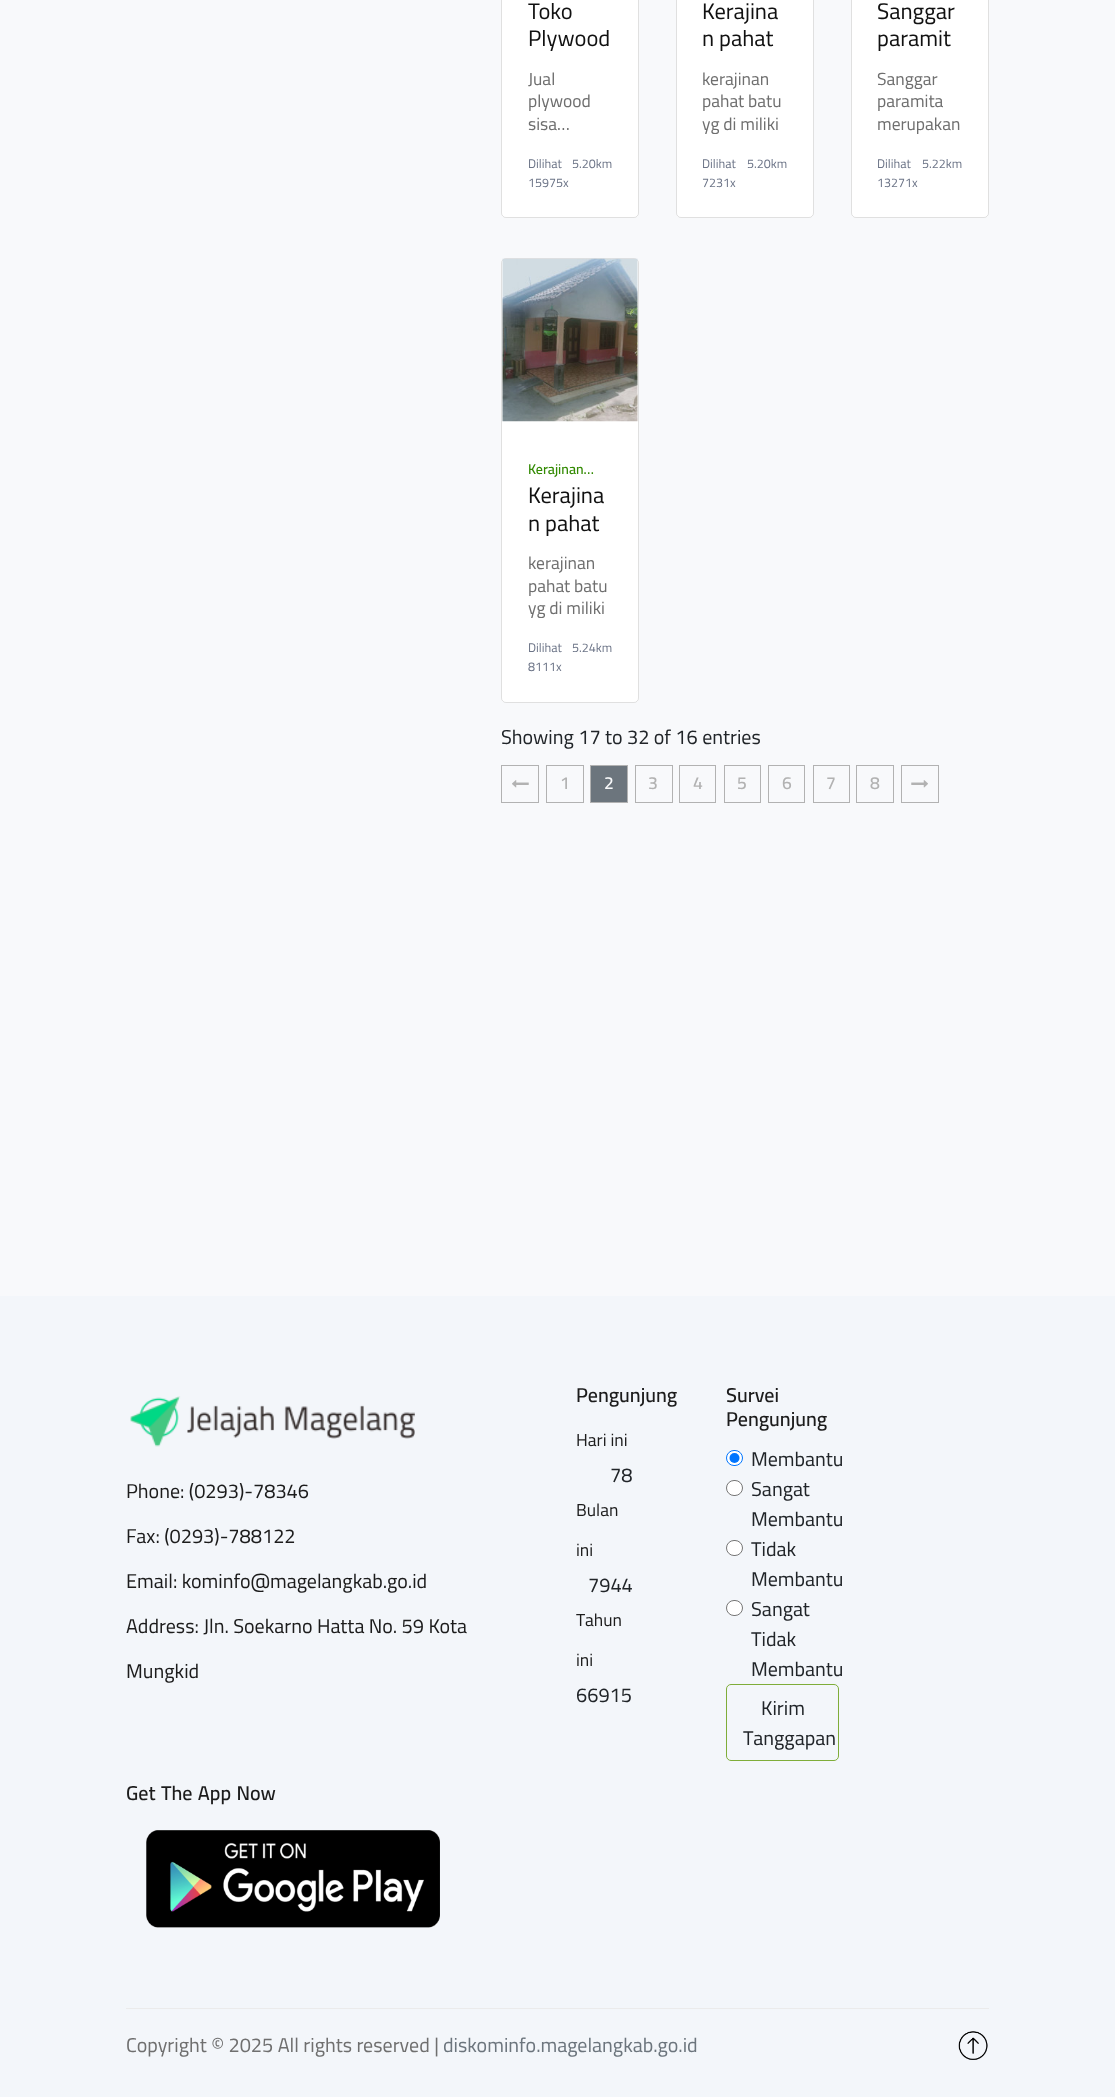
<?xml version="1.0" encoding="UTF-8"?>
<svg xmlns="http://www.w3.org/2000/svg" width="1115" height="2097">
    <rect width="100%" height="100%" fill="#F8F9FB"/>
    <rect x="501" y="-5" width="138" height="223" rx="5" fill="#FFFFFF"/>
    <rect x="501.5" y="-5.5" width="137" height="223" rx="4.5" fill="none" stroke="#000000" stroke-opacity="0.12"/>
    <text font-family="Cairo" font-size="22.5" fill="#111111">
        <tspan x="528" y="19">Toko</tspan>
        <tspan x="528" y="46">Plywood</tspan>
    </text>
    <text font-family="Cairo" font-size="17.5" fill="#6F6F6F">
        <tspan x="528" y="85">Jual</tspan>
        <tspan x="528" y="107">plywood</tspan>
        <tspan x="528" y="130">sisa…</tspan>
    </text>
    <text font-family="Cairo" font-size="12.5" fill="#6D7588">
        <tspan x="528" y="168">Dilihat</tspan>
        <tspan x="528" y="187">15975x</tspan>
    </text>
    <text x="572" y="168" font-family="Cairo" font-size="12.5" fill="#6D7588">5.20km</text>
    <rect x="676" y="-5" width="138" height="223" rx="5" fill="#FFFFFF"/>
    <rect x="676.5" y="-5.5" width="137" height="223" rx="4.5" fill="none" stroke="#000000" stroke-opacity="0.12"/>
    <text font-family="Cairo" font-size="22.5" fill="#111111">
        <tspan x="702" y="19">Kerajina</tspan>
        <tspan x="702" y="46">n pahat</tspan>
    </text>
    <text font-family="Cairo" font-size="17.5" fill="#6F6F6F">
        <tspan x="702" y="85">kerajinan</tspan>
        <tspan x="702" y="107">pahat batu</tspan>
        <tspan x="702" y="130">yg di miliki</tspan>
    </text>
    <text font-family="Cairo" font-size="12.5" fill="#6D7588">
        <tspan x="702" y="168">Dilihat</tspan>
        <tspan x="702" y="187">7231x</tspan>
    </text>
    <text x="747" y="168" font-family="Cairo" font-size="12.5" fill="#6D7588">5.20km</text>
    <rect x="851" y="-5" width="138" height="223" rx="5" fill="#FFFFFF"/>
    <rect x="851.5" y="-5.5" width="137" height="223" rx="4.5" fill="none" stroke="#000000" stroke-opacity="0.12"/>
    <text font-family="Cairo" font-size="22.5" fill="#111111">
        <tspan x="877" y="19">Sanggar</tspan>
        <tspan x="877" y="46">paramit</tspan>
    </text>
    <text font-family="Cairo" font-size="17.5" fill="#6F6F6F">
        <tspan x="877" y="85">Sanggar</tspan>
        <tspan x="877" y="107">paramita</tspan>
        <tspan x="877" y="130">merupakan</tspan>
    </text>
    <text font-family="Cairo" font-size="12.5" fill="#6D7588">
        <tspan x="877" y="168">Dilihat</tspan>
        <tspan x="877" y="187">13271x</tspan>
    </text>
    <text x="922" y="168" font-family="Cairo" font-size="12.5" fill="#6D7588">5.22km</text>
    <rect x="501" y="258" width="138" height="445" rx="5" fill="#FFFFFF"/>
    <rect x="501.5" y="258.5" width="137" height="444" rx="4.5" fill="none" stroke="#000000" stroke-opacity="0.12"/>
    <image x="502" y="258" width="136" height="164" href="img_01.png"/>
    <text x="528" y="474" word-spacing="3" font-family="Cairo" font-size="14" font-weight="600" fill="#348B04">Kerajinan…</text>
    <text font-family="Cairo" font-size="22.5" fill="#111111">
        <tspan x="528" y="503">Kerajina</tspan>
        <tspan x="528" y="531">n pahat</tspan>
    </text>
    <text font-family="Cairo" font-size="17.5" fill="#6F6F6F">
        <tspan x="528" y="569">kerajinan</tspan>
        <tspan x="528" y="592">pahat batu</tspan>
        <tspan x="528" y="614">yg di miliki</tspan>
    </text>
    <text font-family="Cairo" font-size="12.5" fill="#6D7588">
        <tspan x="528" y="652">Dilihat</tspan>
        <tspan x="528" y="671">8111x</tspan>
    </text>
    <text x="572" y="652" font-family="Cairo" font-size="12.5" fill="#6D7588">5.24km</text>
    <text x="501" y="744" font-family="Cairo" font-size="20" fill="#212529">Showing 17 to 32 of 16 entries</text>
    <rect x="501.5" y="765.5" width="37" height="37" fill="none" stroke="#B2B2B2"/>
    <image x="512" y="780" width="17" height="8" href="img_02.png"/>
    <rect x="546.5" y="765.5" width="37" height="37" fill="none" stroke="#B2B2B2"/>
    <text x="560" y="789" font-family="Cairo" font-size="17.5" font-weight="600" fill="#B2B2B2">1</text>
    <rect x="590.5" y="765.5" width="37" height="37" fill="#6C757D" stroke="#B2B2B2"/>
    <text x="604" y="789" font-family="Cairo" font-size="17.5" font-weight="600" fill="#F8F9FA">2</text>
    <rect x="635.5" y="765.5" width="37" height="37" fill="none" stroke="#B2B2B2"/>
    <text x="648" y="789" font-family="Cairo" font-size="17.5" font-weight="600" fill="#B2B2B2">3</text>
    <rect x="679.5" y="765.5" width="36" height="37" fill="none" stroke="#B2B2B2"/>
    <text x="693" y="789" font-family="Cairo" font-size="17.5" font-weight="600" fill="#B2B2B2">4</text>
    <rect x="724.5" y="765.5" width="36" height="37" fill="none" stroke="#B2B2B2"/>
    <text x="737" y="789" font-family="Cairo" font-size="17.5" font-weight="600" fill="#B2B2B2">5</text>
    <rect x="768.5" y="765.5" width="36" height="37" fill="none" stroke="#B2B2B2"/>
    <text x="782" y="789" font-family="Cairo" font-size="17.5" font-weight="600" fill="#B2B2B2">6</text>
    <rect x="813.5" y="765.5" width="36" height="37" fill="none" stroke="#B2B2B2"/>
    <text x="826" y="789" font-family="Cairo" font-size="17.5" font-weight="600" fill="#B2B2B2">7</text>
    <rect x="856.5" y="765.5" width="37" height="37" fill="none" stroke="#B2B2B2"/>
    <text x="870" y="789" font-family="Cairo" font-size="17.5" font-weight="600" fill="#B2B2B2">8</text>
    <rect x="901.5" y="765.5" width="37" height="37" fill="none" stroke="#B2B2B2"/>
    <image x="911" y="780" width="17" height="8" href="img_03.png"/>
    <rect x="0" y="1296" width="1115" height="801" fill="#F3F6FA"/>
    <image x="130" y="1396" width="285" height="51" href="img_04.png"/>
    <text x="126" y="1498" font-family="Cairo" font-size="20" fill="#1C1C1C">Phone: (0293)-78346</text>
    <text x="126" y="1543" font-family="Cairo" font-size="20" fill="#1C1C1C">Fax: (0293)-788122</text>
    <text x="126" y="1588" font-family="Cairo" font-size="20" fill="#1C1C1C">Email: kominfo@magelangkab.go.id</text>
    <text x="126" y="1633" font-family="Cairo" font-size="20" fill="#1C1C1C">Address: Jln. Soekarno Hatta No. 59 Kota</text>
    <text x="126" y="1678" font-family="Cairo" font-size="20" fill="#1C1C1C">Mungkid</text>
    <text x="576" y="1402" font-family="Cairo" font-size="20" font-weight="600" fill="#1C1C1C">Pengunjung</text>
    <text x="576" y="1446" font-family="Cairo" font-size="17.5" fill="#1C1C1C">Hari ini</text>
    <text x="610" y="1482" font-family="Cairo" font-size="20" fill="#212529">78</text>
    <text x="576" y="1516" font-family="Cairo" font-size="17.5" fill="#1C1C1C">Bulan</text>
    <text x="576" y="1556" font-family="Cairo" font-size="17.5" fill="#1C1C1C">ini</text>
    <text x="588" y="1592" font-family="Cairo" font-size="20" fill="#212529">7944</text>
    <text x="576" y="1626" font-family="Cairo" font-size="17.5" fill="#1C1C1C">Tahun</text>
    <text x="576" y="1666" font-family="Cairo" font-size="17.5" fill="#1C1C1C">ini</text>
    <text x="576" y="1702" font-family="Cairo" font-size="20" fill="#212529">66915</text>
    <text font-family="Cairo" font-size="20" font-weight="600" fill="#1C1C1C">
        <tspan x="726" y="1402">Survei</tspan>
        <tspan x="726" y="1426">Pengunjung</tspan>
    </text>
    <rect x="726.5" y="1450.5" width="16" height="15" rx="7.5" fill="#FFFFFF" stroke="#0075FF"/>
    <circle cx="734.5" cy="1458" r="5" fill="#0075FF"/>
    <text x="751" y="1466" font-family="Cairo" font-size="20" fill="#212529">Membantu</text>
    <rect x="726.5" y="1480.5" width="16" height="15" rx="7.5" fill="#FFFFFF" stroke="#767676"/>
    <text font-family="Cairo" font-size="20" fill="#212529">
        <tspan x="751" y="1496">Sangat</tspan>
        <tspan x="751" y="1526">Membantu</tspan>
    </text>
    <rect x="726.5" y="1540.5" width="16" height="15" rx="7.5" fill="#FFFFFF" stroke="#767676"/>
    <text font-family="Cairo" font-size="20" fill="#212529">
        <tspan x="751" y="1556">Tidak</tspan>
        <tspan x="751" y="1586">Membantu</tspan>
    </text>
    <rect x="726.5" y="1600.5" width="16" height="15" rx="7.5" fill="#FFFFFF" stroke="#767676"/>
    <text font-family="Cairo" font-size="20" fill="#212529">
        <tspan x="751" y="1616">Sangat</tspan>
        <tspan x="751" y="1646">Tidak</tspan>
        <tspan x="751" y="1676">Membantu</tspan>
    </text>
    <rect x="726.5" y="1684.5" width="112" height="76" rx="4.5" fill="none" stroke="#7FAD39"/>
    <text x="761" y="1715" font-family="Cairo" font-size="20" fill="#212529">Kirim</text>
    <text x="743" y="1745" font-family="Cairo" font-size="20" fill="#212529">Tanggapan</text>
    <text x="126" y="1800" word-spacing="1" font-family="Cairo" font-size="20" font-weight="600" fill="#1C1C1C">Get The App Now</text>
    <image x="146" y="1830" width="294" height="98" href="img_05.png"/>
    <rect x="126" y="2008" width="863" height="1" fill="#EBEBEB"/>
    <text x="126" y="2052" font-family="Cairo" font-size="20" fill="#6F6F6F">Copyright © 2025 All rights reserved |</text>
    <text x="443" y="2052" font-family="Cairo" font-size="20" fill="#6C757D">diskominfo.magelangkab.go.id</text>
    <image x="958" y="2031" width="30" height="29" href="img_06.png"/>
</svg>
